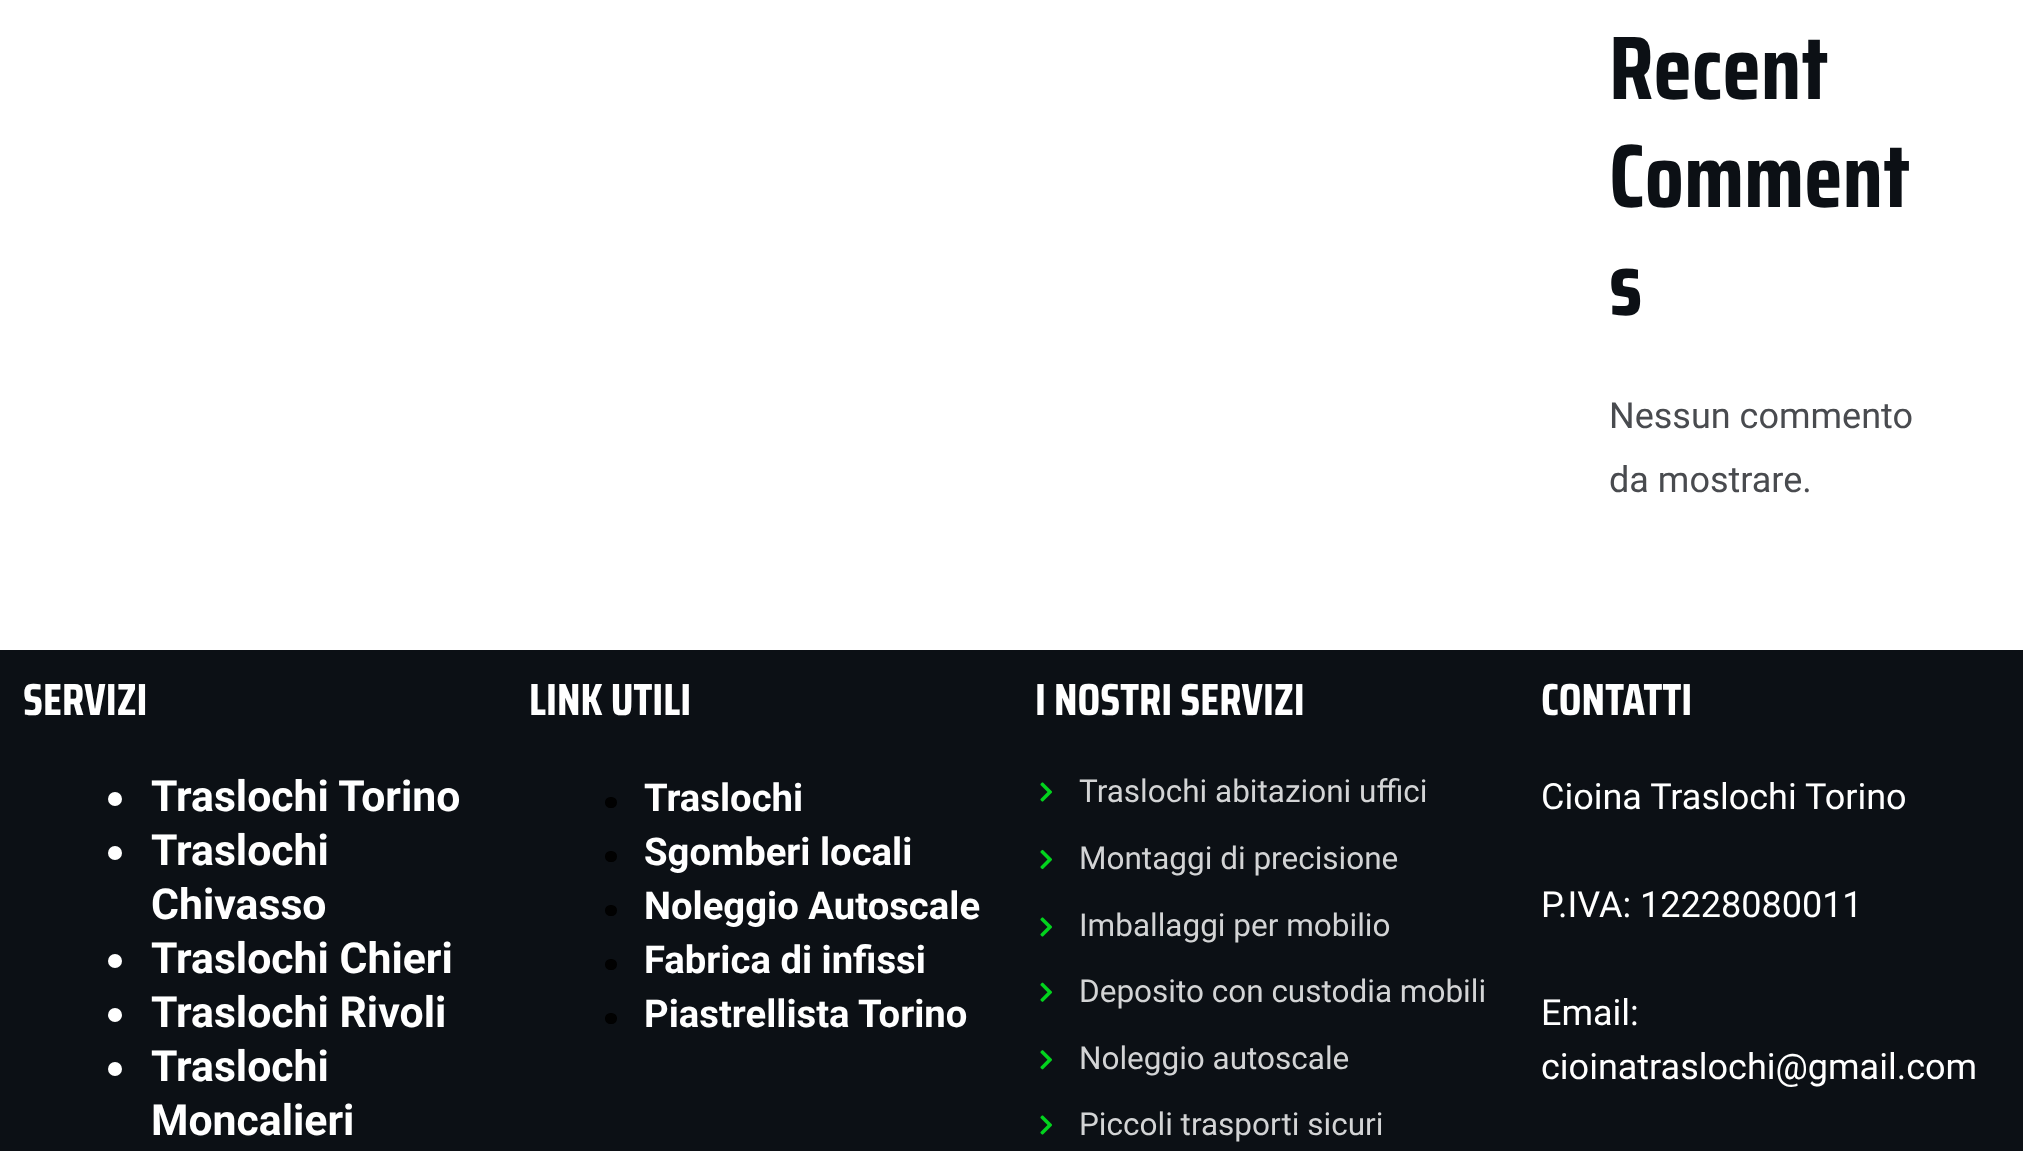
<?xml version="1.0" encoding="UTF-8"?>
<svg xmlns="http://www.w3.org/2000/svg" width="2023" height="1151">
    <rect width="100%" height="100%" fill="#FFFFFF"/>
    <text font-family="Saira Condensed" font-size="90" font-weight="700" fill="#0C1015">
        <tspan x="1609" y="99">Recent</tspan>
        <tspan x="1609" y="207">Comment</tspan>
        <tspan x="1609" y="315">s</tspan>
    </text>
    <text font-family="Roboto" font-size="36" fill="#494B4F">
        <tspan x="1609" y="428">Nessun commento</tspan>
        <tspan x="1609" y="492">da mostrare.</tspan>
    </text>
    <rect x="0" y="650" width="2023" height="501" fill="#0C1015"/>
    <text x="23" y="715" font-family="Saira Condensed" font-size="45" font-weight="700" fill="#FFFFFF">SERVIZI</text>
    <circle cx="115" cy="799" r="7" fill="#FFFFFF"/>
    <text x="151" y="811" font-family="Roboto" font-size="42.75" font-weight="700" fill="#FFFFFF">Traslochi Torino</text>
    <circle cx="115" cy="853" r="7" fill="#FFFFFF"/>
    <text font-family="Roboto" font-size="42.75" font-weight="700" fill="#FFFFFF">
        <tspan x="151" y="865">Traslochi</tspan>
        <tspan x="151" y="919">Chivasso</tspan>
    </text>
    <circle cx="115" cy="961" r="7" fill="#FFFFFF"/>
    <text x="151" y="973" font-family="Roboto" font-size="42.75" font-weight="700" fill="#FFFFFF">Traslochi Chieri</text>
    <circle cx="115" cy="1015" r="7" fill="#FFFFFF"/>
    <text x="151" y="1027" font-family="Roboto" font-size="42.75" font-weight="700" fill="#FFFFFF">Traslochi Rivoli</text>
    <circle cx="115" cy="1069" r="7" fill="#FFFFFF"/>
    <text font-family="Roboto" font-size="42.75" font-weight="700" fill="#FFFFFF">
        <tspan x="151" y="1081">Traslochi</tspan>
        <tspan x="151" y="1135">Moncalieri</tspan>
    </text>
    <text x="529" y="715" font-family="Saira Condensed" font-size="45" font-weight="700" fill="#FFFFFF">LINK UTILI</text>
    <rect x="605" y="797" width="12" height="11" rx="5.5" fill="#010101"/>
    <text x="644" y="811" font-family="Roboto" font-size="38.25" font-weight="700" fill="#FFFFFF">Traslochi</text>
    <rect x="605" y="851" width="12" height="11" rx="5.5" fill="#010101"/>
    <text x="644" y="865" font-family="Roboto" font-size="38.25" font-weight="700" fill="#FFFFFF">Sgomberi locali</text>
    <rect x="605" y="905" width="12" height="11" rx="5.5" fill="#010101"/>
    <text x="644" y="919" font-family="Roboto" font-size="38.25" font-weight="700" fill="#FFFFFF">Noleggio Autoscale</text>
    <rect x="605" y="959" width="12" height="11" rx="5.5" fill="#010101"/>
    <text x="644" y="973" font-family="Roboto" font-size="38.25" font-weight="700" fill="#FFFFFF">Fabrica di infissi</text>
    <rect x="605" y="1013" width="12" height="11" rx="5.5" fill="#010101"/>
    <text x="644" y="1027" font-family="Roboto" font-size="38.25" font-weight="700" fill="#FFFFFF">Piastrellista Torino</text>
    <text x="1035" y="715" font-family="Saira Condensed" font-size="45" font-weight="700" fill="#FFFFFF">I NOSTRI SERVIZI</text>
    <image x="1040" y="782" width="12" height="20" href="img_01.png"/>
    <text x="1079" y="802" font-family="Roboto" font-size="31.5" fill="#D3D4D5">Traslochi abitazioni uffici</text>
    <image x="1040" y="849" width="12" height="21" href="img_02.png"/>
    <text x="1079" y="869" font-family="Roboto" font-size="31.5" fill="#D3D4D5">Montaggi di precisione</text>
    <image x="1040" y="917" width="12" height="20" href="img_01.png"/>
    <text x="1079" y="936" font-family="Roboto" font-size="31.5" fill="#D3D4D5">Imballaggi per mobilio</text>
    <image x="1040" y="982" width="12" height="20" href="img_03.png"/>
    <text x="1079" y="1002" font-family="Roboto" font-size="31.5" fill="#D3D4D5">Deposito con custodia mobili</text>
    <image x="1040" y="1050" width="12" height="20" href="img_04.png"/>
    <text x="1079" y="1069" font-family="Roboto" font-size="31.5" fill="#D3D4D5">Noleggio autoscale</text>
    <image x="1040" y="1115" width="12" height="20" href="img_01.png"/>
    <text x="1079" y="1135" font-family="Roboto" font-size="31.5" fill="#D3D4D5">Piccoli trasporti sicuri</text>
    <text x="1541" y="715" font-family="Saira Condensed" font-size="45" font-weight="700" fill="#FFFFFF">CONTATTI</text>
    <text x="1541" y="809" font-family="Roboto" font-size="36" fill="#FFFFFF">Cioina Traslochi Torino</text>
    <text x="1541" y="917" font-family="Roboto" font-size="36" fill="#FFFFFF">P.IVA: 12228080011</text>
    <text font-family="Roboto" font-size="36" fill="#FFFFFF">
        <tspan x="1541" y="1025">Email:</tspan>
        <tspan x="1541" y="1079">cioinatraslochi@gmail.com</tspan>
    </text>
</svg>
